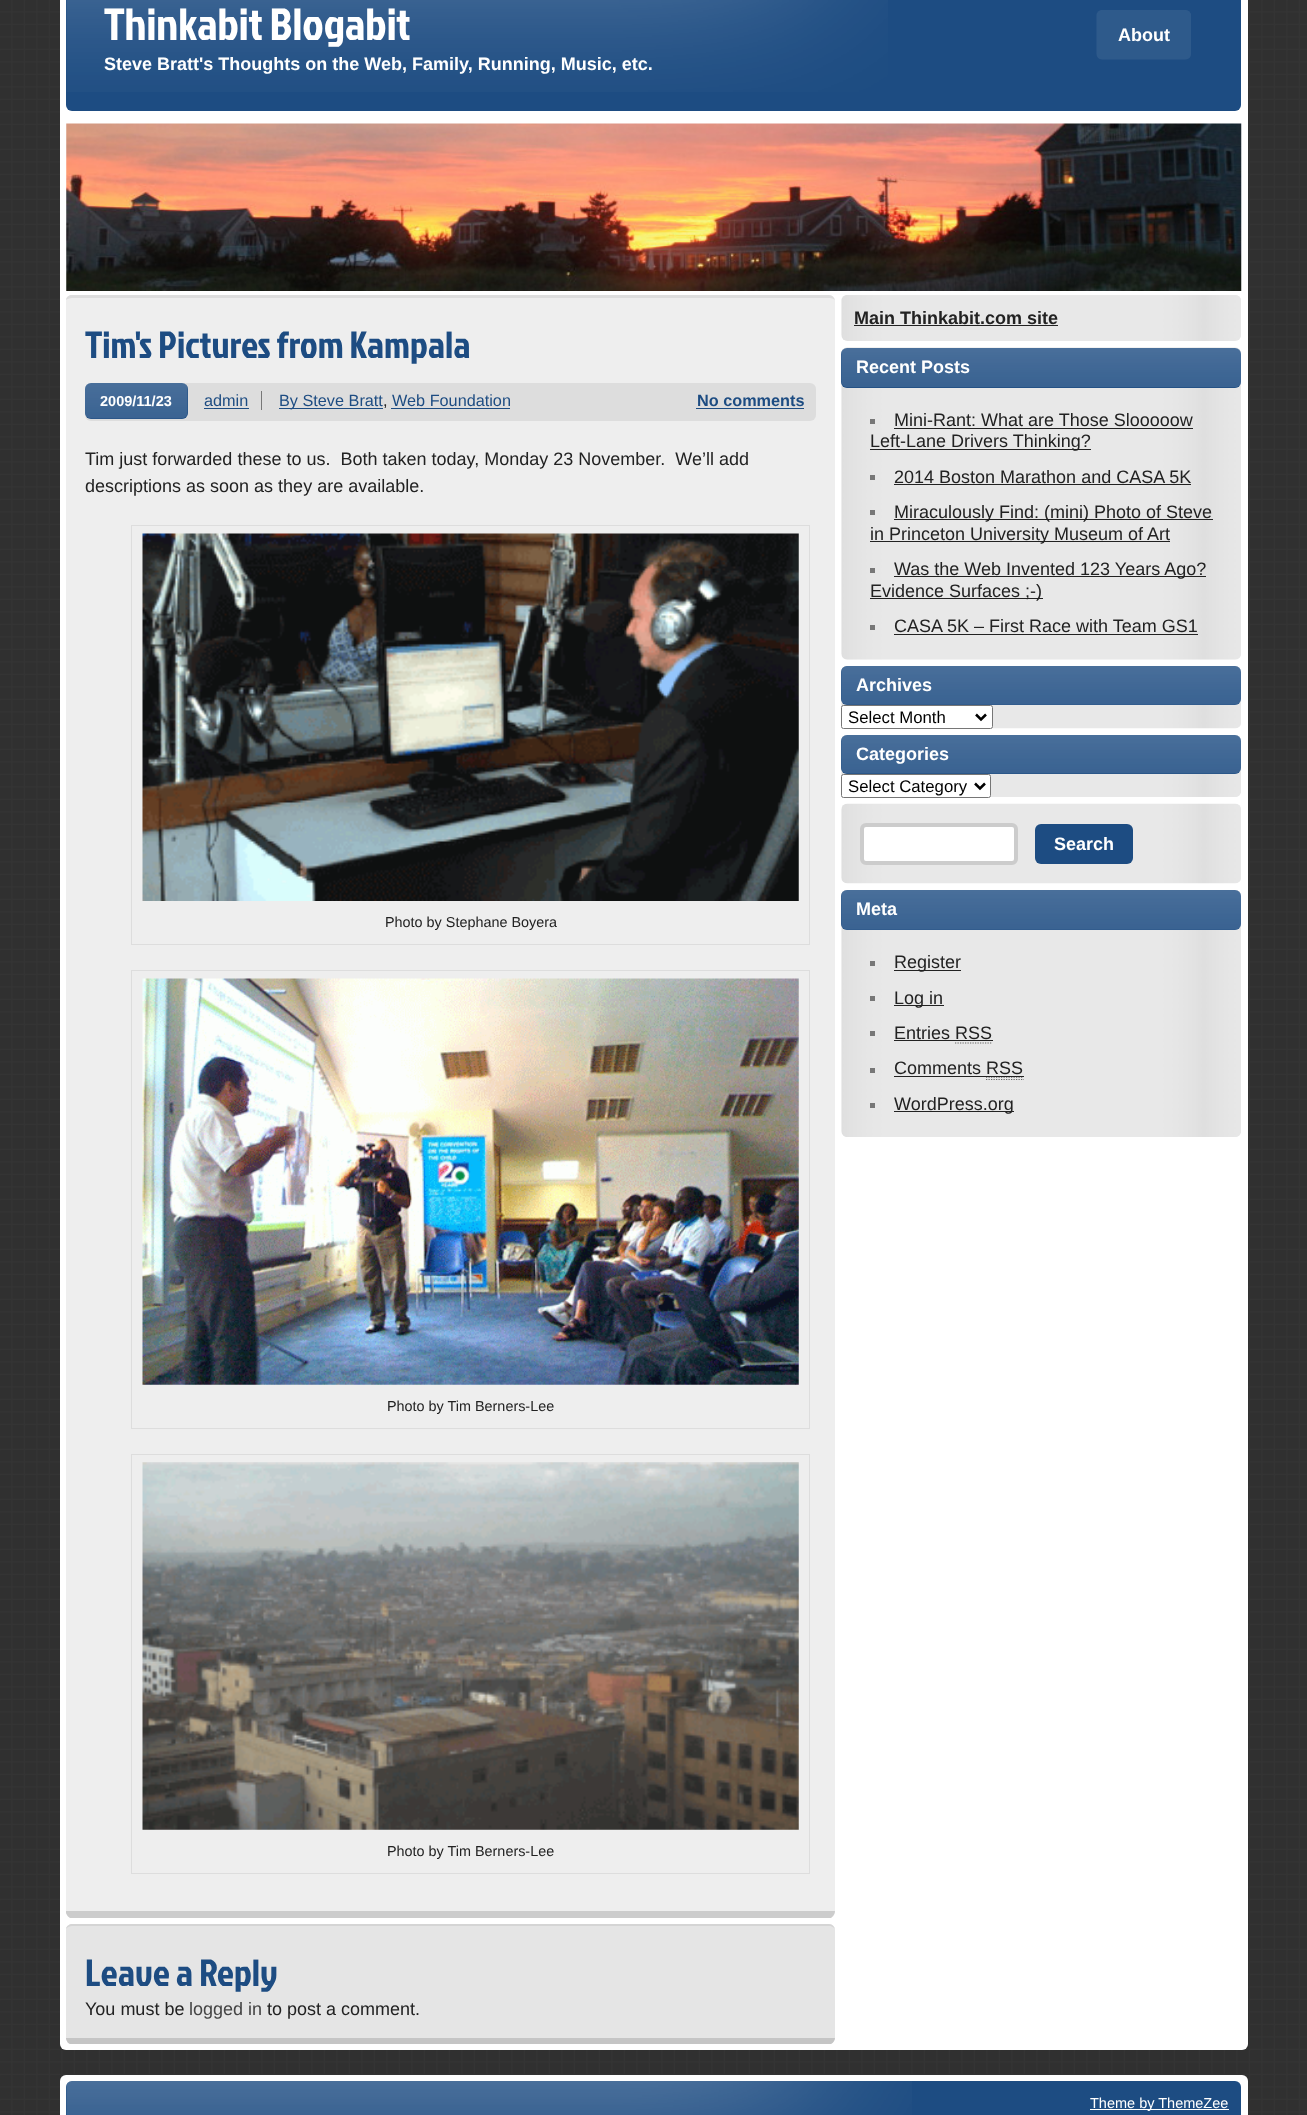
<?xml version="1.0" encoding="UTF-8"?>
<svg xmlns="http://www.w3.org/2000/svg" width="1307" height="2115">
    <rect width="100%" height="100%" fill="#FFFFFF"/>
    <image x="0" y="0" width="1307" height="2115" href="img_01.png"/>
    <rect x="60" y="-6" width="1188" height="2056" rx="6" fill="#FFFFFF"/>
    <rect x="66" y="-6" width="1175" height="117" rx="6" fill="#1D4C82"/>
    <image x="66" y="0" width="822" height="92" href="img_02.png"/>
    <text x="104" y="40" font-family="Jockey One" font-size="45" fill="#FFFFFF">Thinkabit Blogabit</text>
    <text x="104" y="70" font-family="Liberation Sans" font-size="18" font-weight="700" fill="#FFFFFF">Steve Bratt's Thoughts on the Web, Family, Running, Music, etc.</text>
    <image x="1096" y="10" width="95" height="50" href="img_03.png"/>
    <text x="1118" y="41" font-family="Liberation Sans" font-size="18" font-weight="700" fill="#FFFFFF">About</text>
    <image x="66" y="123" width="1176" height="168" href="img_04.png"/>
    <rect x="66" y="295" width="769" height="1623" rx="6" fill="#EEEEEE"/>
    <path d="M 72 295 C 69 295 66 297 66 300 C 67 299 70 298 72 298 H 829 C 832 298 835 299 835 301 C 835 298 832 295 829 295 Z" fill="#DDDDDD"/>
    <path d="M 831 1918 C 833 1916 835 1914 835 1911 H 66 V 1913 C 67 1915 68 1917 70 1918 Z" fill="#CCCCCC"/>
    <text x="85" y="358" font-family="Jockey One" font-size="37.75" fill="#1D4C82">Tim's Pictures from Kampala</text>
    <rect x="85" y="383" width="731" height="38" rx="6" fill="#DDDDDD"/>
    <rect x="85" y="383" width="103" height="36" rx="6" fill="#1D4C82"/>
    <image x="85" y="383" width="103" height="36" href="img_05.png"/>
    <text x="204" y="406" font-family="Liberation Sans" font-size="16.25" fill="#1D4C82">admin</text>
    <rect x="261" y="391" width="1" height="19" fill="#777777"/>
    <rect x="204" y="408" width="45" height="1" fill="#1D4C82"/>
    <rect x="279" y="408" width="104" height="1" fill="#1D4C82"/>
    <text x="279" y="406" font-family="Liberation Sans" font-size="16.25" fill="#1D4C82">By Steve Bratt</text>
    <text x="392" y="406" font-family="Liberation Sans" font-size="16.25" fill="#1D4C82">Web Foundation</text>
    <text x="697" y="406" font-family="Liberation Sans" font-size="16.25" font-weight="700" fill="#1D4C82">No comments</text>
    <rect x="696" y="408" width="108" height="1" fill="#1D4C82"/>
    <text x="100" y="406" font-family="Liberation Sans" font-size="14.5" font-weight="700" fill="#FFFFFF">2009/11/23</text>
    <text x="383" y="406" font-family="Liberation Sans" font-size="16.25" fill="#222222">,</text>
    <rect x="391" y="408" width="119" height="1" fill="#1D4C82"/>
    <text font-family="Liberation Sans" font-size="18" fill="#222222" xml:space="preserve"><tspan x="85" y="465">Tim just forwarded these to us.  Both taken today, Monday 23 November.  We’ll add</tspan><tspan x="85" y="492">descriptions as soon as they are available.</tspan></text>
    <rect x="131.5" y="525.5" width="678" height="419" fill="none" stroke="#DDDDDD"/>
    <image x="142" y="533" width="657" height="368" href="img_06.png"/>
    <text x="385" y="927" font-family="Liberation Sans" font-size="14.4" fill="#222222">Photo by Stephane Boyera</text>
    <rect x="131.5" y="970.5" width="678" height="458" fill="none" stroke="#DDDDDD"/>
    <image x="142" y="978" width="657" height="407" href="img_07.png"/>
    <text x="387" y="1411" font-family="Liberation Sans" font-size="14.4" fill="#222222">Photo by Tim Berners-Lee</text>
    <rect x="131.5" y="1454.5" width="678" height="419" fill="none" stroke="#DDDDDD"/>
    <image x="142" y="1462" width="657" height="368" href="img_08.png"/>
    <text x="387" y="1856" font-family="Liberation Sans" font-size="14.4" fill="#222222">Photo by Tim Berners-Lee</text>
    <rect x="66" y="1924" width="769" height="120" rx="6" fill="#E5E5E5"/>
    <path d="M 72 1924 H 829 C 832 1924 835 1927 835 1930 C 835 1928 832 1926 829 1926 H 72 C 70 1926 67 1927 66 1929 C 66 1926 70 1924 72 1924 Z" fill="#D5D5D5"/>
    <path d="M 831 2044 C 833 2043 835 2040 835 2038 H 66 C 66 2040 68 2044 70 2044 Z" fill="#C5C5C5"/>
    <text x="85" y="1986" font-family="Jockey One" font-size="37.75" fill="#1D4C82">Leave a Reply</text>
    <text x="85" y="2015" font-family="Liberation Sans" font-size="18" fill="#222222">You must be</text>
    <text x="189" y="2015" font-family="Liberation Sans" font-size="18" fill="#444444">logged in</text>
    <text x="267" y="2015" font-family="Liberation Sans" font-size="18" fill="#222222">to post a comment.</text>
    <image x="841" y="295" width="400" height="46" href="img_09.png"/>
    <text x="854" y="324" font-family="Liberation Sans" font-size="18" font-weight="700" fill="#222222">Main Thinkabit.com site</text>
    <rect x="854" y="325" width="204" height="1" fill="#222222"/>
    <image x="841" y="347" width="400" height="313" href="img_10.png"/>
    <rect x="841" y="348" width="400" height="40" rx="6" fill="#1D4C82"/>
    <image x="841" y="348" width="400" height="40" href="img_11.png"/>
    <text x="856" y="373" font-family="Liberation Sans" font-size="18" font-weight="700" fill="#FFFFFF">Recent Posts</text>
    <rect x="870" y="419" width="5" height="5" fill="#777777"/>
    <text x="894" y="426" font-family="Liberation Sans" font-size="18" fill="#222222">Mini-Rant: What are Those Slooooow</text>
    <rect x="894" y="428" width="299" height="1" fill="#222222"/>
    <rect x="870" y="449" width="221" height="1" fill="#222222"/>
    <text x="870" y="447" font-family="Liberation Sans" font-size="18" fill="#222222">Left-Lane Drivers Thinking?</text>
    <rect x="870" y="475" width="5" height="5" fill="#777777"/>
    <text x="894" y="483" font-family="Liberation Sans" font-size="18" fill="#222222">2014 Boston Marathon and CASA 5K</text>
    <rect x="894" y="484" width="297" height="1" fill="#222222"/>
    <rect x="870" y="510" width="5" height="5" fill="#777777"/>
    <rect x="894" y="519" width="319" height="1" fill="#222222"/>
    <text x="894" y="518" font-family="Liberation Sans" font-size="18" fill="#222222">Miraculously Find: (mini) Photo of Steve</text>
    <rect x="870" y="541" width="300" height="1" fill="#222222"/>
    <text x="870" y="540" font-family="Liberation Sans" font-size="18" fill="#222222">in Princeton University Museum of Art</text>
    <rect x="870" y="568" width="5" height="5" fill="#777777"/>
    <rect x="894" y="576" width="312" height="1" fill="#222222"/>
    <text x="894" y="575" font-family="Liberation Sans" font-size="18" fill="#222222">Was the Web Invented 123 Years Ago?</text>
    <rect x="870" y="598" width="173" height="1" fill="#222222"/>
    <text x="870" y="597" font-family="Liberation Sans" font-size="18" fill="#222222">Evidence Surfaces ;-)</text>
    <rect x="870" y="625" width="5" height="5" fill="#777777"/>
    <text x="894" y="632" font-family="Liberation Sans" font-size="18" fill="#222222">CASA 5K – First Race with Team GS1</text>
    <rect x="894" y="634" width="304" height="1" fill="#222222"/>
    <image x="841" y="666" width="400" height="63" href="img_12.png"/>
    <rect x="841" y="666" width="400" height="39" rx="6" fill="#1D4C82"/>
    <image x="841" y="666" width="400" height="39" href="img_13.png"/>
    <text x="856" y="691" font-family="Liberation Sans" font-size="18" font-weight="700" fill="#FFFFFF">Archives</text>
    <rect x="841.5" y="705.5" width="151" height="23" rx="2" fill="#FFFFFF" stroke="#767676"/>
    <path d="M 976 714.5 L 981 719.5 L 986 714.5" fill="none" stroke="#000000" stroke-width="2.5"/>
    <text x="848" y="723" font-family="Liberation Sans" font-size="16.75" fill="#000000">Select Month</text>
    <image x="841" y="735" width="400" height="62" href="img_14.png"/>
    <rect x="841" y="735" width="400" height="39" rx="6" fill="#1D4C82"/>
    <image x="841" y="735" width="400" height="39" href="img_15.png"/>
    <text x="856" y="760" font-family="Liberation Sans" font-size="18" font-weight="700" fill="#FFFFFF">Categories</text>
    <rect x="841.5" y="774.5" width="149" height="23" rx="2" fill="#FFFFFF" stroke="#767676"/>
    <path d="M 975 783.5 L 980 788.5 L 985 783.5" fill="none" stroke="#000000" stroke-width="2.5"/>
    <text x="848" y="792" font-family="Liberation Sans" font-size="16.75" fill="#000000">Select Category</text>
    <image x="841" y="803" width="400" height="81" href="img_16.png"/>
    <rect x="862" y="825" width="154" height="38" rx="4" fill="#FFFFFF" stroke="#CCCCCC" stroke-width="4"/>
    <rect x="1035" y="824" width="98" height="40" rx="6" fill="#1D4C82"/>
    <text x="1054" y="850" font-family="Liberation Sans" font-size="18" font-weight="700" fill="#FFFFFF">Search</text>
    <image x="841" y="890" width="400" height="247" href="img_17.png"/>
    <rect x="841" y="890" width="400" height="40" rx="6" fill="#1D4C82"/>
    <image x="841" y="890" width="400" height="40" href="img_18.png"/>
    <text x="856" y="915" font-family="Liberation Sans" font-size="18" font-weight="700" fill="#FFFFFF">Meta</text>
    <rect x="870" y="961" width="5" height="5" fill="#777777"/>
    <rect x="894" y="970" width="67" height="1" fill="#222222"/>
    <text x="894" y="968" font-family="Liberation Sans" font-size="18" fill="#222222">Register</text>
    <rect x="870" y="996" width="5" height="5" fill="#777777"/>
    <rect x="894" y="1005" width="50" height="1" fill="#222222"/>
    <text x="894" y="1004" font-family="Liberation Sans" font-size="18" fill="#222222">Log in</text>
    <rect x="870" y="1031" width="5" height="5" fill="#777777"/>
    <text x="894" y="1039" font-family="Liberation Sans" font-size="18" fill="#222222">Entries</text>
    <rect x="894" y="1040" width="61" height="1" fill="#222222"/>
    <path d="M 955 1040.5 H 992" fill="none" stroke="#222222" stroke-width="1.2" stroke-dasharray="1.25 1.25"/>
    <text x="955" y="1039" font-family="Liberation Sans" font-size="18" fill="#222222">RSS</text>
    <path d="M 955 1043 H 992.5" fill="none" stroke="#666666" stroke-width="1.2" stroke-dasharray="1.25 1.25"/>
    <rect x="955" y="1040" width="38" height="1" fill="#222222"/>
    <rect x="870" y="1068" width="5" height="5" fill="#777777"/>
    <text x="894" y="1074" font-family="Liberation Sans" font-size="18" fill="#222222">Comments RSS</text>
    <rect x="894" y="1076" width="92" height="1" fill="#222222"/>
    <path d="M 986 1079.5 H 1024" fill="none" stroke="#666666" stroke-width="1.2" stroke-dasharray="1.25 1.25"/>
    <path d="M 986 1077 H 1023" fill="none" stroke="#222222" stroke-width="1.2" stroke-dasharray="1.25 1.25"/>
    <rect x="986" y="1076" width="38" height="1" fill="#222222"/>
    <rect x="870" y="1103" width="5" height="5" fill="#777777"/>
    <rect x="894" y="1111" width="120" height="1" fill="#222222"/>
    <text x="894" y="1110" font-family="Liberation Sans" font-size="18" fill="#222222">WordPress.org</text>
    <rect x="60" y="2075" width="1188" height="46" rx="6" fill="#FFFFFF"/>
    <rect x="66" y="2081" width="1175" height="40" rx="6" fill="#1D4C82"/>
    <image x="66" y="2081" width="846" height="34" href="img_19.png"/>
    <rect x="1090" y="2109" width="139" height="1" fill="#FFFFFF"/>
    <text x="1090" y="2108" font-family="Liberation Sans" font-size="14.5" fill="#FFFFFF">Theme by ThemeZee</text>
</svg>
